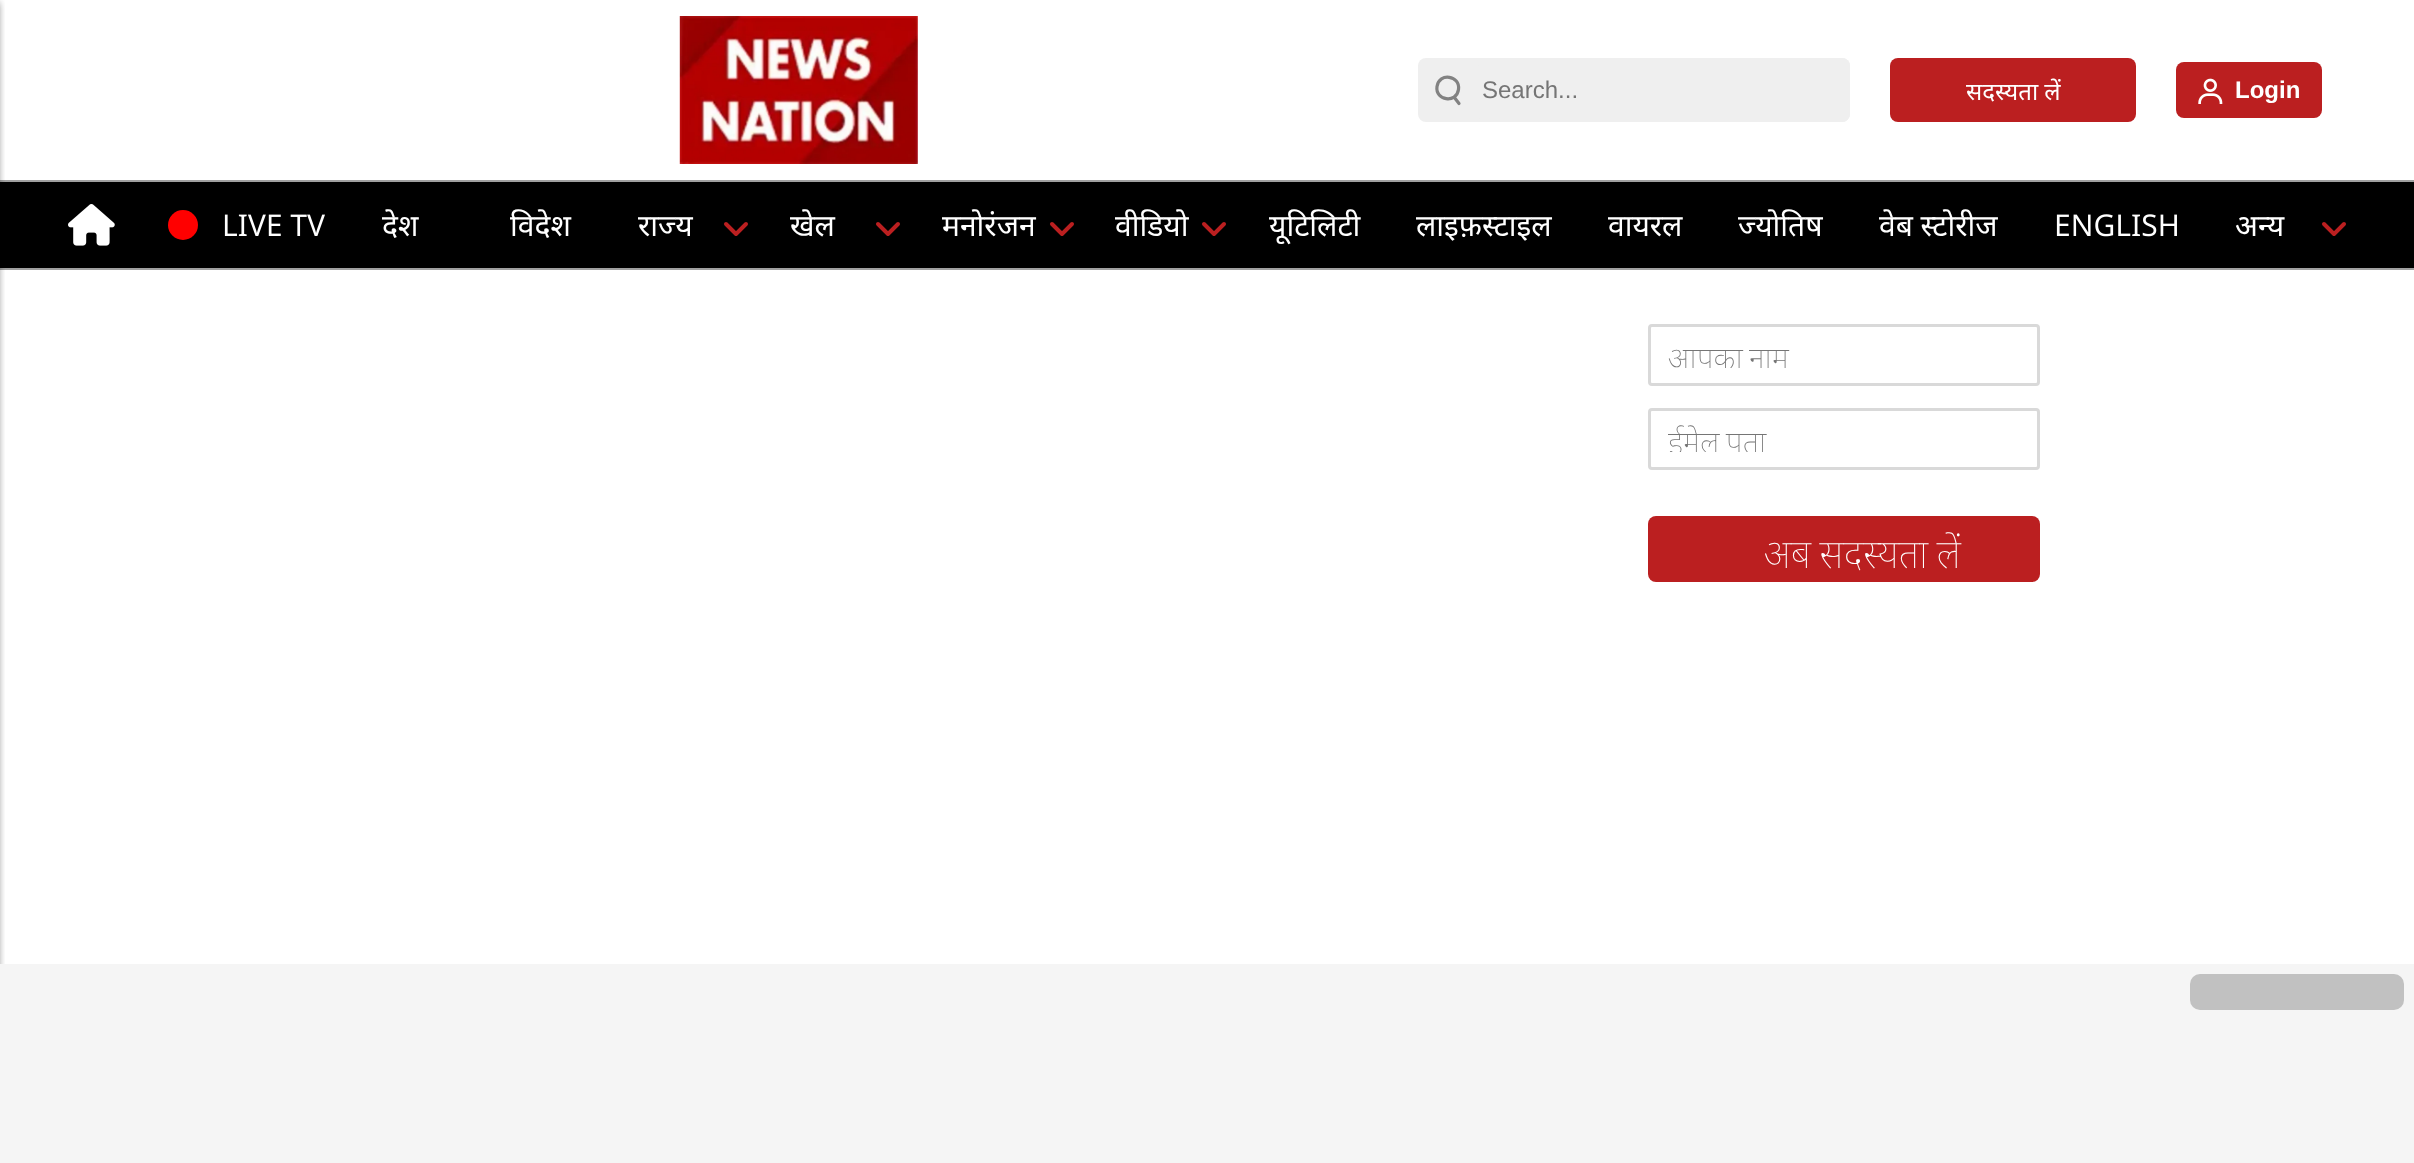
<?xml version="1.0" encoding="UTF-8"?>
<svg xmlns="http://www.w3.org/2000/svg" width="2414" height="1163">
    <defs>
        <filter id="blur1" x="-50%" y="-200%" width="200%" height="500%"><feGaussianBlur stdDeviation="3"/></filter>
        <clipPath id="clip1"><rect x="1668" y="338" width="352" height="30"/></clipPath>
        <clipPath id="clip2"><rect x="1668" y="422" width="352" height="30"/></clipPath>
    </defs>
    <rect width="100%" height="100%" fill="#FFFFFF"/>
    <rect x="0" y="180" width="2414" height="2" fill="#A0A0A0"/>
    <rect x="0" y="268" width="2414" height="2" fill="#A0A0A0"/>
    <rect x="0" y="182" width="2414" height="86" fill="#000000"/>
    <rect x="-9" y="4" width="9" height="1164" fill="#000000" fill-opacity="0.22" filter="url(#blur1)"/>
    <rect x="-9" y="0" width="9" height="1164" fill="#000000" fill-opacity="0.12" filter="url(#blur1)"/>
    <image x="679" y="16" width="239" height="148" href="img_01.png"/>
    <rect x="1418" y="58" width="432" height="64" rx="8" fill="#EFEFEF"/>
    <path d="M 1458.5 89.5 C 1456.5 104 1435 100.5 1437 86.5 C 1439 72 1460.5 75.5 1458.5 89.5 Z M 1459 103.5 L 1454 97" fill="none" stroke="#828282" stroke-width="3.2" stroke-linecap="round" stroke-linejoin="round"/>
    <rect x="1478" y="58" width="372" height="64" rx="8" fill="#EFEFEF"/>
    <text x="1482" y="98" font-family="Liberation Sans" font-size="24" fill="#757575">Search...</text>
    <rect x="1890" y="58" width="246" height="64" rx="8" fill="#BB1F20"/>
    <text x="1966" y="100" font-family="Noto Sans" font-size="24" fill="#FFFFFF">सदस्यता लें</text>
    <rect x="2176" y="62" width="146" height="56" rx="8" fill="#BB1F20"/>
    <image x="2198" y="78" width="25" height="26" href="img_02.png"/>
    <text x="2235" y="98" font-family="Liberation Sans" font-size="24" font-weight="700" fill="#FFFFFF">Login</text>
    <image x="68" y="204" width="47" height="42" href="img_03.png"/>
    <circle cx="183" cy="225" r="15" fill="#FF0000"/>
    <image x="224" y="214" width="101" height="22" href="img_04.png"/>
    <text x="382" y="236" font-family="Noto Sans" font-size="30" fill="#FFFFFF">देश</text>
    <text x="510" y="236" font-family="Noto Sans" font-size="30" fill="#FFFFFF">विदेश</text>
    <text x="638" y="236" font-family="Noto Sans" font-size="30" fill="#FFFFFF">राज्य</text>
    <path d="M 726 224 L 736 234 L 746 224" fill="none" stroke="#BB1F20" stroke-width="4" stroke-linecap="round" stroke-linejoin="round"/>
    <text x="790" y="236" font-family="Noto Sans" font-size="30" fill="#FFFFFF">खेल</text>
    <path d="M 878 224 L 888 234 L 898 224" fill="none" stroke="#BB1F20" stroke-width="4" stroke-linecap="round" stroke-linejoin="round"/>
    <text x="942" y="236" font-family="Noto Sans" font-size="30" fill="#FFFFFF">मनोरंजन</text>
    <path d="M 1052 224 L 1062 234 L 1072 224" fill="none" stroke="#BB1F20" stroke-width="4" stroke-linecap="round" stroke-linejoin="round"/>
    <text x="1115" y="236" font-family="Noto Sans" font-size="30" fill="#FFFFFF">वीडियो</text>
    <path d="M 1204 224 L 1214 234 L 1224 224" fill="none" stroke="#BB1F20" stroke-width="4" stroke-linecap="round" stroke-linejoin="round"/>
    <text x="1269" y="236" font-family="Noto Sans" font-size="30" fill="#FFFFFF">यूटिलिटी</text>
    <text x="1416" y="236" font-family="Noto Sans" font-size="30" fill="#FFFFFF">लाइफ़स्टाइल</text>
    <text x="1608" y="236" font-family="Noto Sans" font-size="30" fill="#FFFFFF">वायरल</text>
    <text x="1738" y="236" font-family="Noto Sans" font-size="30" fill="#FFFFFF">ज्योतिष</text>
    <text x="1879" y="236" font-family="Noto Sans" font-size="30" fill="#FFFFFF">वेब स्टोरीज</text>
    <image x="2056" y="214" width="121" height="23" href="img_05.png"/>
    <text x="2235" y="236" font-family="Noto Sans" font-size="30" fill="#FFFFFF">अन्य</text>
    <path d="M 2324 224 L 2334 234 L 2344 224" fill="none" stroke="#BB1F20" stroke-width="4" stroke-linecap="round" stroke-linejoin="round"/>
    <rect x="1649.5" y="325.5" width="389" height="59" rx="2.5" fill="none" stroke="#D9D9D9" stroke-width="3"/>
    <g clip-path="url(#clip1)">
        <text x="1668" y="370" word-spacing="-2" font-family="Noto Sans" font-size="32" font-weight="100" fill="#757575">आपका नाम</text>
    </g>
    <rect x="1649.5" y="409.5" width="389" height="59" rx="2.5" fill="none" stroke="#D9D9D9" stroke-width="3"/>
    <g clip-path="url(#clip2)">
        <text x="1668" y="454" word-spacing="-2" font-family="Noto Sans" font-size="32" font-weight="100" fill="#757575">ईमेल पता</text>
    </g>
    <rect x="1648" y="516" width="392" height="66" rx="8" fill="#BB1F20"/>
    <text x="1764" y="568" word-spacing="-2" font-family="Noto Sans" font-size="40" font-weight="100" fill="#FFFFFF">अब सदस्यता लें</text>
    <rect x="0" y="964" width="2414" height="199" fill="#F5F5F5"/>
    <rect x="2190" y="974" width="214" height="36" rx="10" fill="#C1C1C1"/>
</svg>
